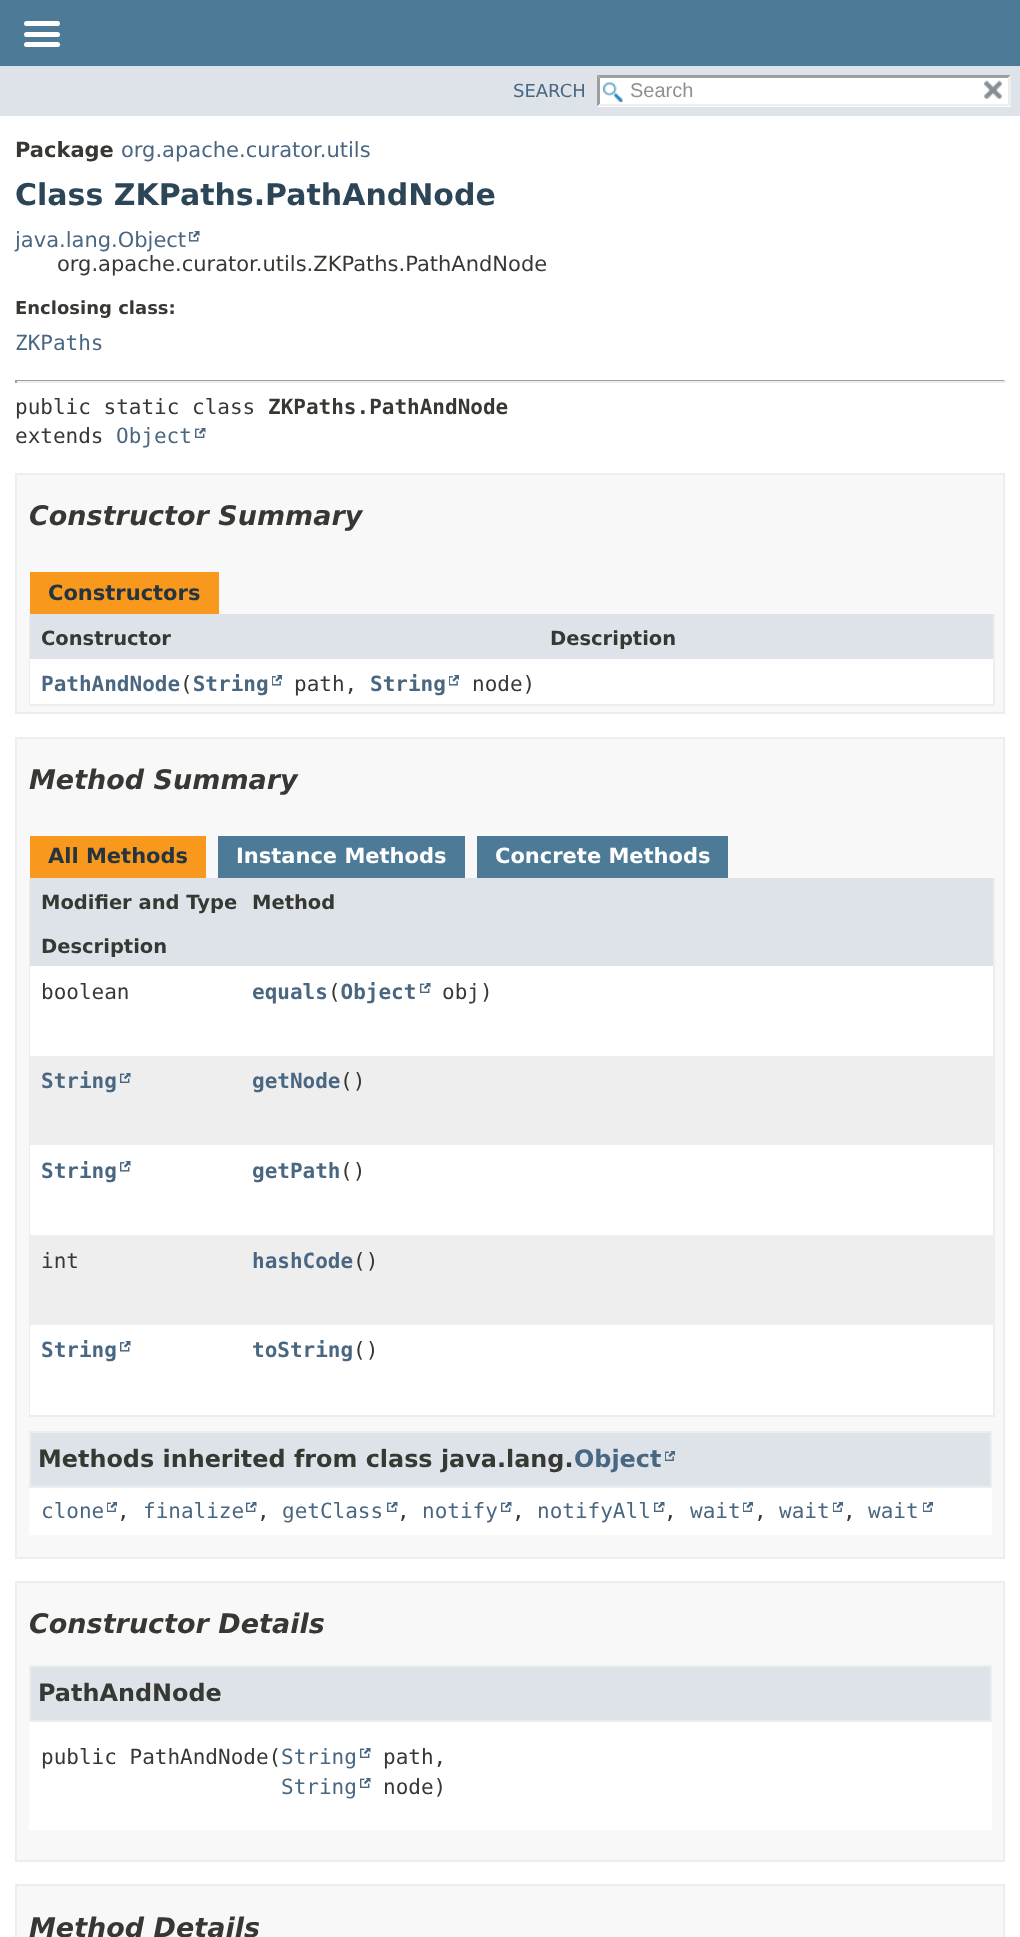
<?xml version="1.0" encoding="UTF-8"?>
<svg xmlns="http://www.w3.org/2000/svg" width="1020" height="1937">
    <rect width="100%" height="100%" fill="#FFFFFF"/>
    <rect x="0" y="0" width="1020" height="66" fill="#4D7A97"/>
    <rect x="24" y="21" width="36" height="5" rx="2.5" fill="#FFFFFF"/>
    <rect x="24" y="32" width="36" height="5" rx="2.5" fill="#FFFFFF"/>
    <rect x="24" y="42" width="36" height="5" rx="2.5" fill="#FFFFFF"/>
    <rect x="0" y="66" width="1020" height="50" fill="#DEE3E9"/>
    <text x="513" y="97" font-family="DejaVu Sans" font-size="18" fill="#4A6782">SEARCH</text>
    <rect x="597" y="75" width="414" height="32" fill="#FFFFFF"/>
    <image x="603" y="82" width="20" height="20" href="img_01.png"/>
    <path d="M 597 75 H 1011 L 1008 78 H 600 Z" fill="#9E9E9E"/>
    <path d="M 1011 75 V 106.5 L 1008 103.5 V 78 Z" fill="#EDEDED"/>
    <path d="M 1011 106 H 597 L 600 104 H 1008 Z" fill="#EDEDED"/>
    <path d="M 597 106.5 V 75 L 600 78 V 103.5 Z" fill="#9E9E9E"/>
    <text x="630" y="97" font-family="Liberation Sans" font-size="20" fill="#909090">Search</text>
    <image x="984" y="80" width="18" height="19" href="img_02.png"/>
    <text x="15" y="157" font-family="DejaVu Sans" font-size="21" font-weight="700" fill="#353833">Package</text>
    <text x="121" y="157" font-family="DejaVu Sans" font-size="21" fill="#4A6782">org.apache.curator.utils</text>
    <text x="15" y="205" font-family="DejaVu Sans" font-size="30" font-weight="700" fill="#2C4557">Class ZKPaths.PathAndNode</text>
    <text x="15" y="247" font-family="DejaVu Sans" font-size="21" fill="#4A6782">java.lang.Object</text>
    <image x="189" y="231" width="11" height="11" href="img_03.png"/>
    <text x="57" y="271" font-family="DejaVu Sans" font-size="21" fill="#353833">org.apache.curator.utils.ZKPaths.PathAndNode</text>
    <text x="15" y="314" font-family="DejaVu Sans" font-size="18" font-weight="700" fill="#353833">Enclosing class:</text>
    <text x="15" y="350" font-family="DejaVu Sans Mono" font-size="21" fill="#4A6782">ZKPaths</text>
    <rect x="15" y="380" width="990" height="1" fill="#9F9F9F"/>
    <rect x="1004" y="380" width="2" height="3" fill="#EEEEEE"/>
    <rect x="15" y="381" width="990" height="2" fill="#EEEEEE"/>
    <rect x="15" y="380" width="2" height="3" fill="#9F9F9F"/>
    <text x="15" y="414" font-family="DejaVu Sans Mono" font-size="21" fill="#353833">public static class</text>
    <text x="268" y="414" font-family="DejaVu Sans Mono" font-size="21" font-weight="700" fill="#353833">ZKPaths.PathAndNode</text>
    <text x="15" y="443" font-family="DejaVu Sans Mono" font-size="21" fill="#353833">extends</text>
    <text x="116" y="443" font-family="DejaVu Sans Mono" font-size="21" fill="#4A6782">Object</text>
    <image x="195" y="428" width="11" height="10" href="img_04.png"/>
    <rect x="16" y="474" width="988" height="239" fill="#F8F8F8" stroke="#EDEDED" stroke-width="2"/>
    <text x="29" y="525" font-family="DejaVu Sans" font-size="27" font-weight="700" font-style="italic" fill="#353833">Constructor Summary</text>
    <rect x="30" y="572" width="189" height="42" fill="#F8981D"/>
    <text x="48" y="600" font-family="DejaVu Sans" font-size="21" font-weight="700" fill="#253441">Constructors</text>
    <rect x="993" y="614" width="2" height="91" fill="#EDEDED"/>
    <rect x="29" y="704" width="966" height="2" fill="#EDEDED"/>
    <rect x="29" y="614" width="2" height="91" fill="#EDEDED"/>
    <rect x="30" y="614" width="963" height="45" fill="#DEE3E9"/>
    <text x="41" y="645" font-family="DejaVu Sans" font-size="19.5" font-weight="700" fill="#353833">Constructor</text>
    <text x="550" y="645" font-family="DejaVu Sans" font-size="19.5" font-weight="700" fill="#353833">Description</text>
    <rect x="30" y="659" width="963" height="45" fill="#FFFFFF"/>
    <text x="41" y="691" font-family="DejaVu Sans Mono" font-size="21" font-weight="700" fill="#4A6782">PathAndNode String</text>
    <text x="370" y="691" font-family="DejaVu Sans Mono" font-size="21" font-weight="700" fill="#4A6782">String</text>
    <image x="449" y="675" width="10" height="11" href="img_05.png"/>
    <text x="180" y="691" font-family="DejaVu Sans Mono" font-size="21" fill="#353833">(</text>
    <image x="272" y="675" width="10" height="11" href="img_05.png"/>
    <text x="294" y="691" font-family="DejaVu Sans Mono" font-size="21" fill="#353833">path,</text>
    <text x="472" y="691" font-family="DejaVu Sans Mono" font-size="21" fill="#353833">node)</text>
    <rect x="16" y="738" width="988" height="820" fill="#F8F8F8" stroke="#EDEDED" stroke-width="2"/>
    <text x="29" y="789" font-family="DejaVu Sans" font-size="27" font-weight="700" font-style="italic" fill="#353833">Method Summary</text>
    <rect x="30" y="836" width="176" height="42" fill="#F8981D"/>
    <text x="48" y="863" font-family="DejaVu Sans" font-size="21" font-weight="700" fill="#253441">All Methods</text>
    <rect x="218" y="836" width="247" height="42" fill="#4D7A97"/>
    <text x="236" y="863" font-family="DejaVu Sans" font-size="21" font-weight="700" fill="#FFFFFF">Instance Methods</text>
    <rect x="477" y="836" width="251" height="42" fill="#4D7A97"/>
    <text x="495" y="863" font-family="DejaVu Sans" font-size="21" font-weight="700" fill="#FFFFFF">Concrete Methods</text>
    <rect x="993" y="878" width="2" height="538" fill="#EDEDED"/>
    <rect x="29" y="1415" width="966" height="2" fill="#EDEDED"/>
    <rect x="29" y="878" width="2" height="538" fill="#EDEDED"/>
    <rect x="30" y="878" width="963" height="88" fill="#DEE3E9"/>
    <text x="41" y="909" font-family="DejaVu Sans" font-size="19.5" font-weight="700" fill="#353833">Modifier and Type</text>
    <text x="252" y="909" font-family="DejaVu Sans" font-size="19.5" font-weight="700" fill="#353833">Method</text>
    <text x="41" y="953" font-family="DejaVu Sans" font-size="19.5" font-weight="700" fill="#353833">Description</text>
    <rect x="30" y="966" width="963" height="90" fill="#FFFFFF"/>
    <text x="41" y="999" font-family="DejaVu Sans Mono" font-size="21" fill="#353833">boolean</text>
    <text x="252" y="999" font-family="DejaVu Sans Mono" font-size="21" font-weight="700" fill="#4A6782">equals Object</text>
    <text x="328" y="999" font-family="DejaVu Sans Mono" font-size="21" fill="#353833">(</text>
    <image x="420" y="983" width="11" height="10" href="img_04.png"/>
    <text x="442" y="999" font-family="DejaVu Sans Mono" font-size="21" fill="#353833">obj)</text>
    <rect x="31" y="1056" width="962" height="89" fill="#EEEEEF"/>
    <text x="41" y="1088" font-family="DejaVu Sans Mono" font-size="21" font-weight="700" fill="#4A6782">String</text>
    <image x="120" y="1073" width="11" height="10" href="img_06.png"/>
    <text x="252" y="1088" font-family="DejaVu Sans Mono" font-size="21" font-weight="700" fill="#4A6782">getNode</text>
    <text x="340" y="1088" font-family="DejaVu Sans Mono" font-size="21" fill="#353833">()</text>
    <rect x="30" y="1145" width="963" height="90" fill="#FFFFFF"/>
    <text x="41" y="1178" font-family="DejaVu Sans Mono" font-size="21" font-weight="700" fill="#4A6782">String</text>
    <image x="120" y="1161" width="11" height="11" href="img_03.png"/>
    <text x="252" y="1178" font-family="DejaVu Sans Mono" font-size="21" font-weight="700" fill="#4A6782">getPath</text>
    <text x="340" y="1178" font-family="DejaVu Sans Mono" font-size="21" fill="#353833">()</text>
    <rect x="31" y="1235" width="962" height="90" fill="#EEEEEF"/>
    <text x="41" y="1268" font-family="DejaVu Sans Mono" font-size="21" fill="#353833">int</text>
    <text x="252" y="1268" font-family="DejaVu Sans Mono" font-size="21" font-weight="700" fill="#4A6782">hashCode</text>
    <text x="353" y="1268" font-family="DejaVu Sans Mono" font-size="21" fill="#353833">()</text>
    <rect x="30" y="1325" width="963" height="90" fill="#FFFFFF"/>
    <text x="41" y="1357" font-family="DejaVu Sans Mono" font-size="21" font-weight="700" fill="#4A6782">String</text>
    <image x="120" y="1341" width="11" height="11" href="img_03.png"/>
    <text x="252" y="1357" font-family="DejaVu Sans Mono" font-size="21" font-weight="700" fill="#4A6782">toString</text>
    <text x="353" y="1357" font-family="DejaVu Sans Mono" font-size="21" fill="#353833">()</text>
    <rect x="29" y="1488" width="963" height="47" fill="#FFFFFF"/>
    <rect x="30" y="1432" width="961" height="55" fill="#DEE3E9" stroke="#EDEDED" stroke-width="2"/>
    <text x="38" y="1467" font-family="DejaVu Sans" font-size="23.9" font-weight="700" fill="#353833">Methods inherited from class java.lang.</text>
    <text x="574" y="1467" font-family="DejaVu Sans" font-size="23.9" font-weight="700" fill="#4A6782">Object</text>
    <image x="665" y="1451" width="10" height="10" href="img_07.png"/>
    <text x="41" y="1518" font-family="DejaVu Sans Mono" font-size="21" fill="#4A6782">clone</text>
    <image x="107" y="1502" width="10" height="10" href="img_08.png"/>
    <text x="117" y="1518" font-family="DejaVu Sans Mono" font-size="21" fill="#353833">,</text>
    <text x="143" y="1518" font-family="DejaVu Sans Mono" font-size="21" fill="#4A6782">finalize</text>
    <image x="246" y="1502" width="11" height="10" href="img_04.png"/>
    <text x="257" y="1518" font-family="DejaVu Sans Mono" font-size="21" fill="#353833">,</text>
    <text x="282" y="1518" font-family="DejaVu Sans Mono" font-size="21" fill="#4A6782">getClass</text>
    <image x="387" y="1502" width="11" height="10" href="img_04.png"/>
    <text x="397" y="1518" font-family="DejaVu Sans Mono" font-size="21" fill="#353833">,</text>
    <text x="422" y="1518" font-family="DejaVu Sans Mono" font-size="21" fill="#4A6782">notify</text>
    <image x="501" y="1502" width="11" height="10" href="img_04.png"/>
    <text x="512" y="1518" font-family="DejaVu Sans Mono" font-size="21" fill="#353833">,</text>
    <text x="537" y="1518" font-family="DejaVu Sans Mono" font-size="21" fill="#4A6782">notifyAll</text>
    <image x="654" y="1502" width="11" height="10" href="img_04.png"/>
    <text x="664" y="1518" font-family="DejaVu Sans Mono" font-size="21" fill="#353833">,</text>
    <text x="690" y="1518" font-family="DejaVu Sans Mono" font-size="21" fill="#4A6782">wait</text>
    <image x="743" y="1502" width="10" height="10" href="img_08.png"/>
    <text x="754" y="1518" font-family="DejaVu Sans Mono" font-size="21" fill="#353833">,</text>
    <text x="779" y="1518" font-family="DejaVu Sans Mono" font-size="21" fill="#4A6782">wait</text>
    <image x="833" y="1502" width="10" height="10" href="img_08.png"/>
    <text x="843" y="1518" font-family="DejaVu Sans Mono" font-size="21" fill="#353833">,</text>
    <text x="868" y="1518" font-family="DejaVu Sans Mono" font-size="21" fill="#4A6782">wait</text>
    <image x="923" y="1502" width="10" height="10" href="img_08.png"/>
    <rect x="16" y="1582" width="988" height="279" fill="#F8F8F8" stroke="#EDEDED" stroke-width="2"/>
    <text x="29" y="1633" font-family="DejaVu Sans" font-size="27" font-weight="700" font-style="italic" fill="#353833">Constructor Details</text>
    <rect x="29" y="1722" width="963" height="108" fill="#FFFFFF"/>
    <rect x="30" y="1666" width="961" height="55" fill="#DEE3E9" stroke="#EDEDED" stroke-width="2"/>
    <text x="38" y="1701" font-family="DejaVu Sans" font-size="23.9" font-weight="700" fill="#353833">PathAndNode</text>
    <text x="41" y="1764" font-family="DejaVu Sans Mono" font-size="21" fill="#353833">public PathAndNode(</text>
    <text x="281" y="1764" font-family="DejaVu Sans Mono" font-size="21" fill="#4A6782">String</text>
    <image x="360" y="1748" width="11" height="10" href="img_04.png"/>
    <text x="383" y="1764" font-family="DejaVu Sans Mono" font-size="21" fill="#353833">path,</text>
    <text x="281" y="1794" font-family="DejaVu Sans Mono" font-size="21" fill="#4A6782">String</text>
    <image x="360" y="1778" width="11" height="10" href="img_04.png"/>
    <text x="383" y="1794" font-family="DejaVu Sans Mono" font-size="21" fill="#353833">node)</text>
    <rect x="16" y="1885" width="988" height="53" fill="#F8F8F8" stroke="#EDEDED" stroke-width="2"/>
    <text x="29" y="1937" font-family="DejaVu Sans" font-size="27" font-weight="700" font-style="italic" fill="#353833">Method Details</text>
</svg>
